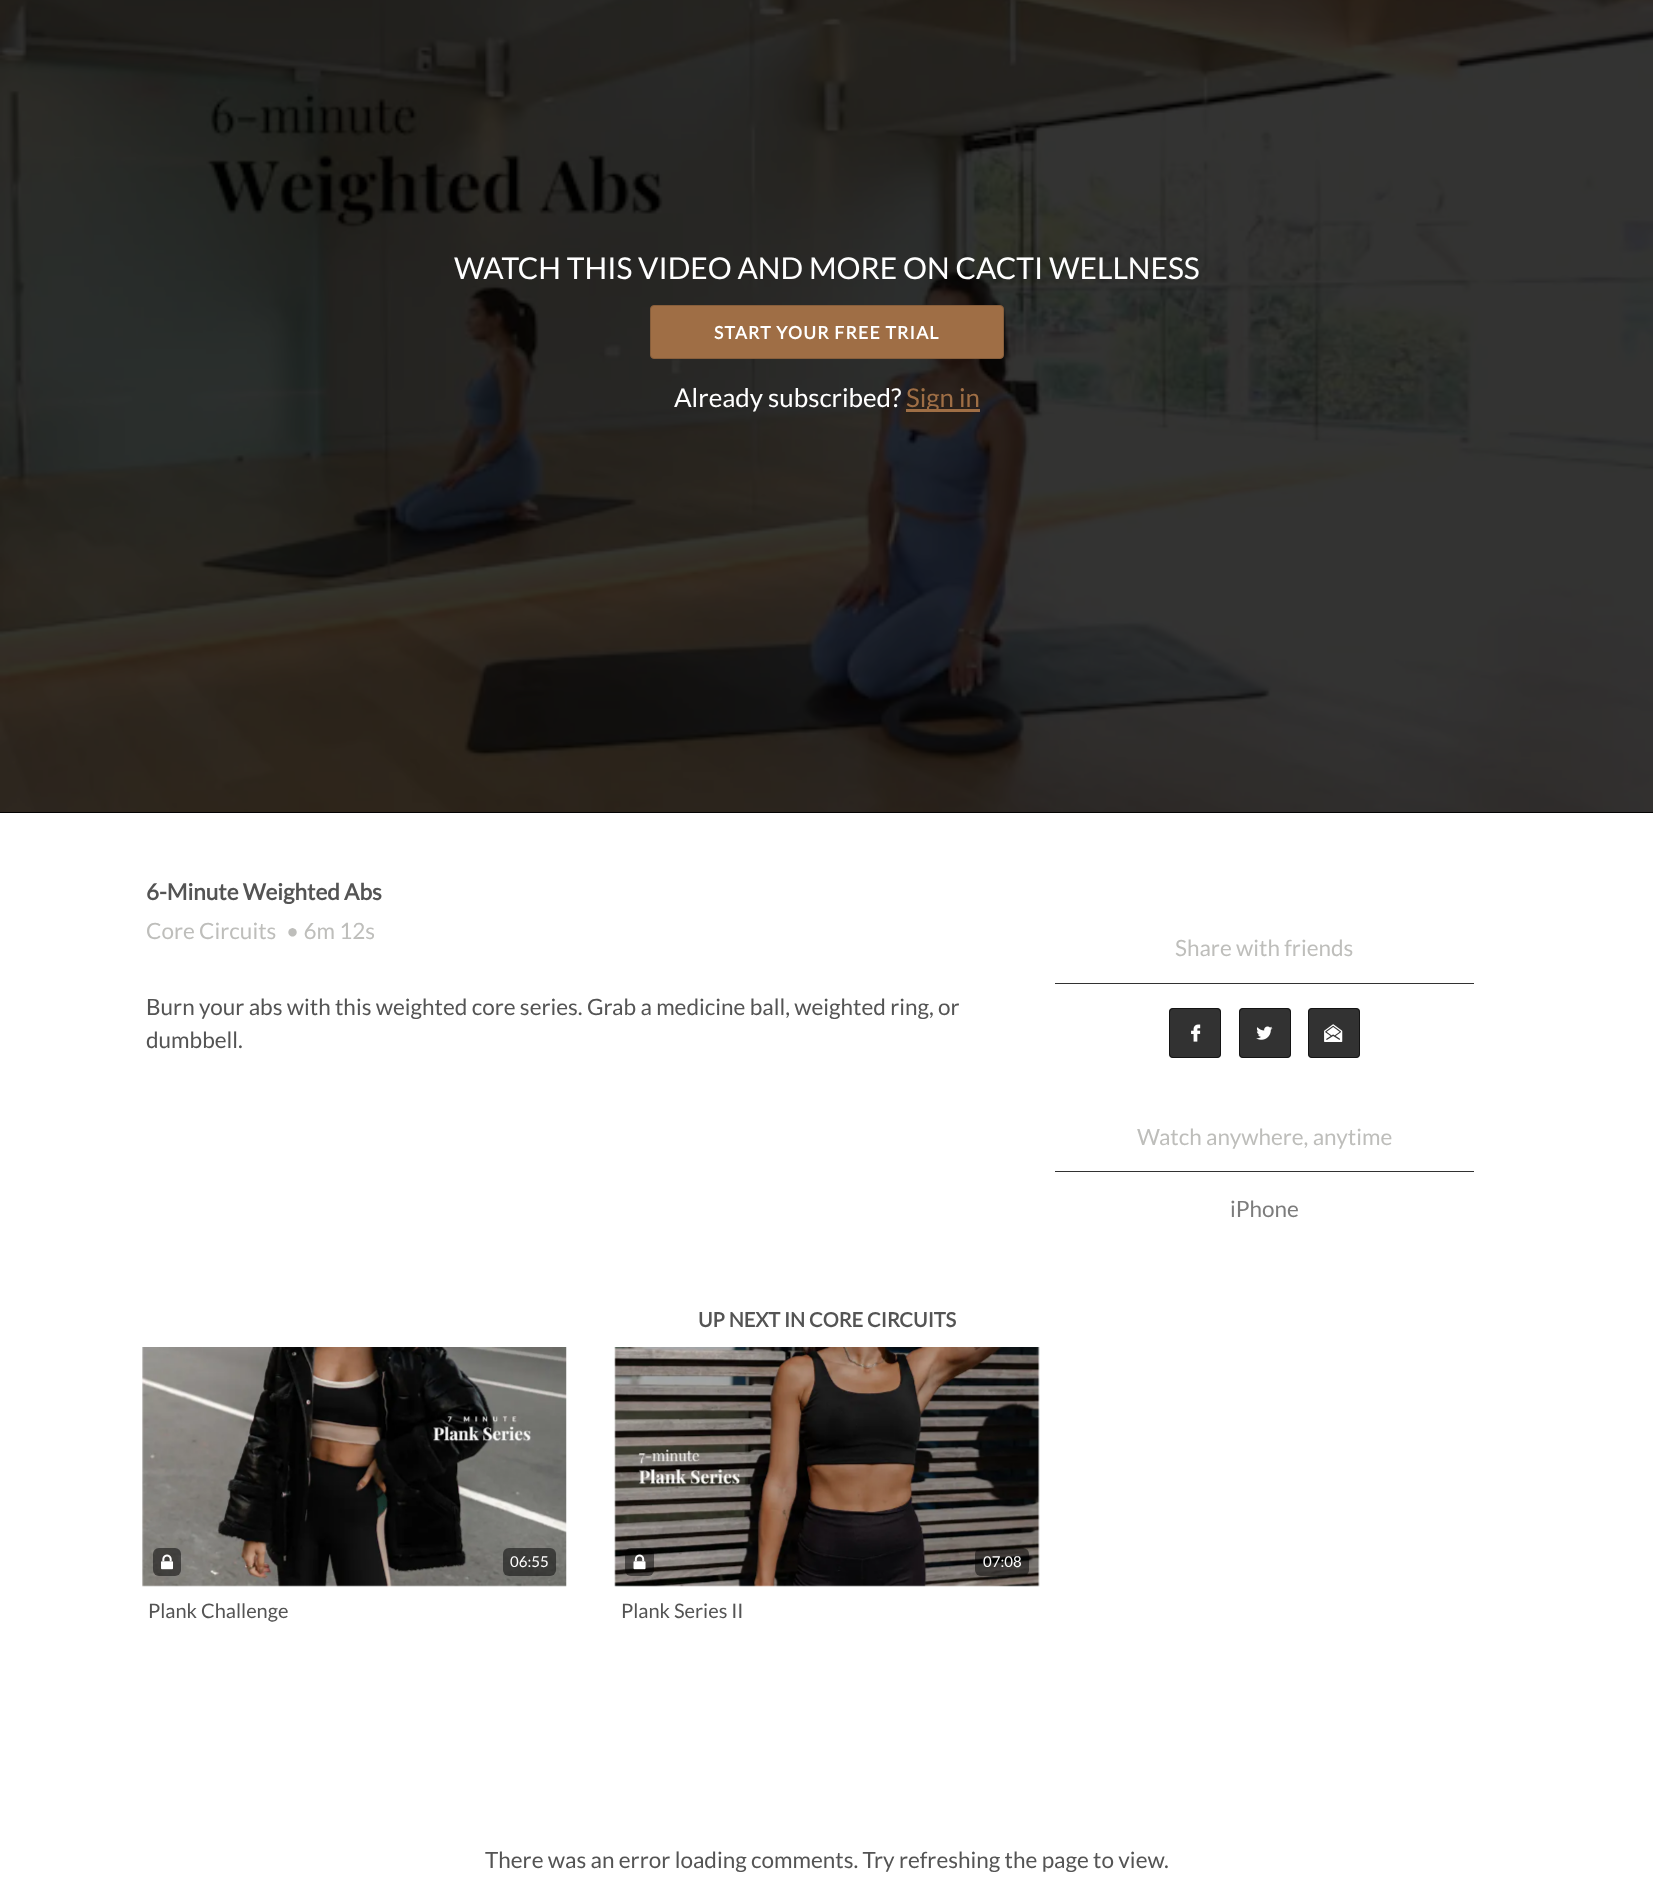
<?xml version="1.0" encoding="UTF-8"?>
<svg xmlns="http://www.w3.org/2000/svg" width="1653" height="1892">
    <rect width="100%" height="100%" fill="#FFFFFF"/>
    <rect x="0" y="812" width="1653" height="1" fill="#000000"/>
    <image x="0" y="0" width="1653" height="813" href="img_01.png"/>
    <text x="454" y="279" font-family="Lato" font-size="30" fill="#FFFFFF">WATCH THIS VIDEO AND MORE ON CACTI WELLNESS</text>
    <rect x="650.5" y="305.5" width="353" height="53" rx="3.5" fill="#9F6E45" stroke="#875E3B"/>
    <text x="714" y="339" font-family="Lato" font-size="17.5" font-weight="700" letter-spacing="1.25" fill="#FFFFFF">START YOUR FREE TRIAL</text>
    <text x="674" y="407" font-family="Lato" font-size="25.9" fill="#FFFFFF">Already subscribed?</text>
    <rect x="906" y="409" width="74" height="3" fill="#9F6E45"/>
    <text x="906" y="407" font-family="Lato" font-size="25.9" fill="#9F6E45">Sign in</text>
    <text x="146" y="900" font-family="Lato" font-size="22.5" font-weight="700" fill="#545454">6-Minute Weighted Abs</text>
    <text x="146" y="939" font-family="Lato" font-size="22.5" fill="#BEBEBB">Core Circuits</text>
    <text x="286" y="939" font-family="Lato" font-size="22.5" fill="#BEBEBB">• 6m 12s</text>
    <text font-family="Lato" font-size="22.5" fill="#545454">
        <tspan x="146" y="1015">Burn your abs with this weighted core series. Grab a medicine ball, weighted ring, or</tspan>
        <tspan x="146" y="1048">dumbbell.</tspan>
    </text>
    <rect x="1055" y="983" width="419" height="1" fill="#323232"/>
    <text x="1175" y="956" font-family="Lato" font-size="22.5" fill="#BEBEBB">Share with friends</text>
    <rect x="1169" y="1008" width="52" height="50" rx="4" fill="#323232"/>
    <image x="1191" y="1024" width="10" height="18" href="img_02.png"/>
    <rect x="1169.5" y="1008.5" width="51" height="49" rx="3.5" fill="none" stroke="#141414"/>
    <rect x="1239" y="1008" width="52" height="50" rx="4" fill="#323232"/>
    <image x="1256" y="1026" width="17" height="14" href="img_03.png"/>
    <rect x="1239.5" y="1008.5" width="51" height="49" rx="3.5" fill="none" stroke="#141414"/>
    <rect x="1308" y="1008" width="52" height="50" rx="4" fill="#323232"/>
    <image x="1324" y="1024" width="19" height="18" href="img_04.png"/>
    <rect x="1308.5" y="1008.5" width="51" height="49" rx="3.5" fill="none" stroke="#141414"/>
    <rect x="1055" y="1171" width="419" height="1" fill="#323232"/>
    <text x="1137" y="1145" font-family="Lato" font-size="22.5" fill="#BEBEBB">Watch anywhere, anytime</text>
    <text x="1230" y="1217" font-family="Lato" font-size="22.5" fill="#7C7C7C">iPhone</text>
    <text x="698" y="1327" font-family="Lato" font-size="20" font-weight="700" fill="#545454">UP NEXT IN CORE CIRCUITS</text>
    <image x="142" y="1347" width="425" height="240" href="img_05.png"/>
    <rect x="153" y="1548" width="28" height="28" rx="6" fill="#000000" fill-opacity="0.5"/>
    <image x="161" y="1554" width="13" height="16" href="img_06.png"/>
    <rect x="503" y="1548" width="53" height="28" rx="6" fill="#000000" fill-opacity="0.5"/>
    <text x="510" y="1567" font-family="Lato" font-size="15" fill="#FFFFFF">06:55</text>
    <text x="148" y="1618" font-family="Lato" font-size="20" fill="#545454">Plank Challenge</text>
    <image x="614" y="1347" width="426" height="240" href="img_07.png"/>
    <rect x="625" y="1548" width="29" height="28" rx="6" fill="#000000" fill-opacity="0.5"/>
    <image x="633" y="1554" width="13" height="16" href="img_08.png"/>
    <rect x="975" y="1548" width="54" height="28" rx="6" fill="#000000" fill-opacity="0.5"/>
    <text x="983" y="1567" font-family="Lato" font-size="15" fill="#FFFFFF">07:08</text>
    <text x="621" y="1618" font-family="Lato" font-size="20" fill="#545454">Plank Series II</text>
    <text x="485" y="1868" font-family="Lato" font-size="22.5" fill="#545454">There was an error loading comments. Try refreshing the page to view.</text>
</svg>
